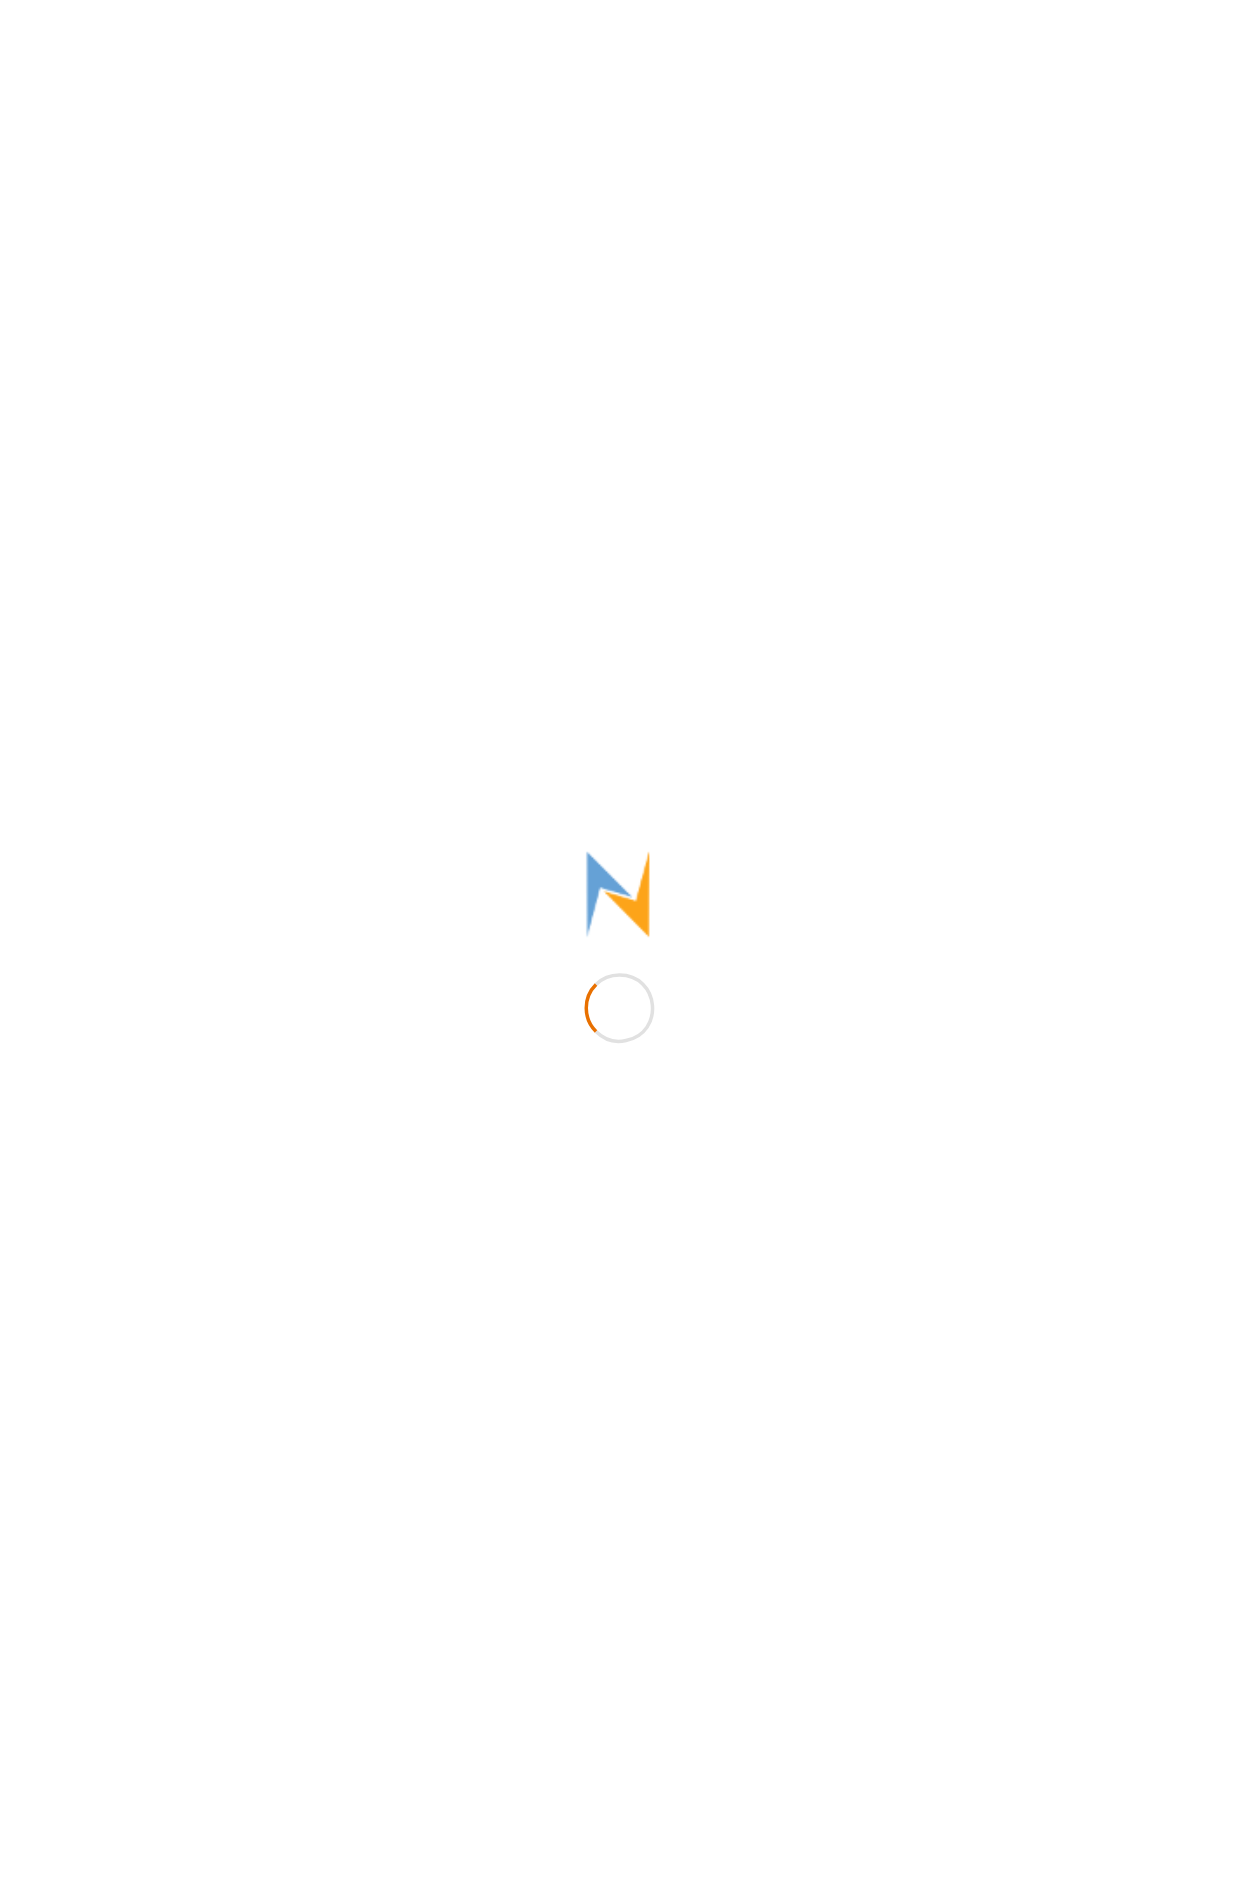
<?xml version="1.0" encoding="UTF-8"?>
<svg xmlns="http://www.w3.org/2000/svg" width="1236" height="1893">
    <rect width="100%" height="100%" fill="#FFFFFF"/>
    <image x="585" y="851" width="65" height="87" href="img_01.png"/>
    <path d="M 596 984.5 C 602 978.5 610.5 975 619.5 975 C 659.5 975 665 1033 626 1040.5 C 615 1043 604 1039.5 596 1031.5" fill="none" stroke="#E1E1E1" stroke-width="3.5"/>
    <path d="M 596 1031.5 C 583 1018.5 583 997.5 596 984.5" fill="none" stroke="#E87000" stroke-width="3.5"/>
</svg>
